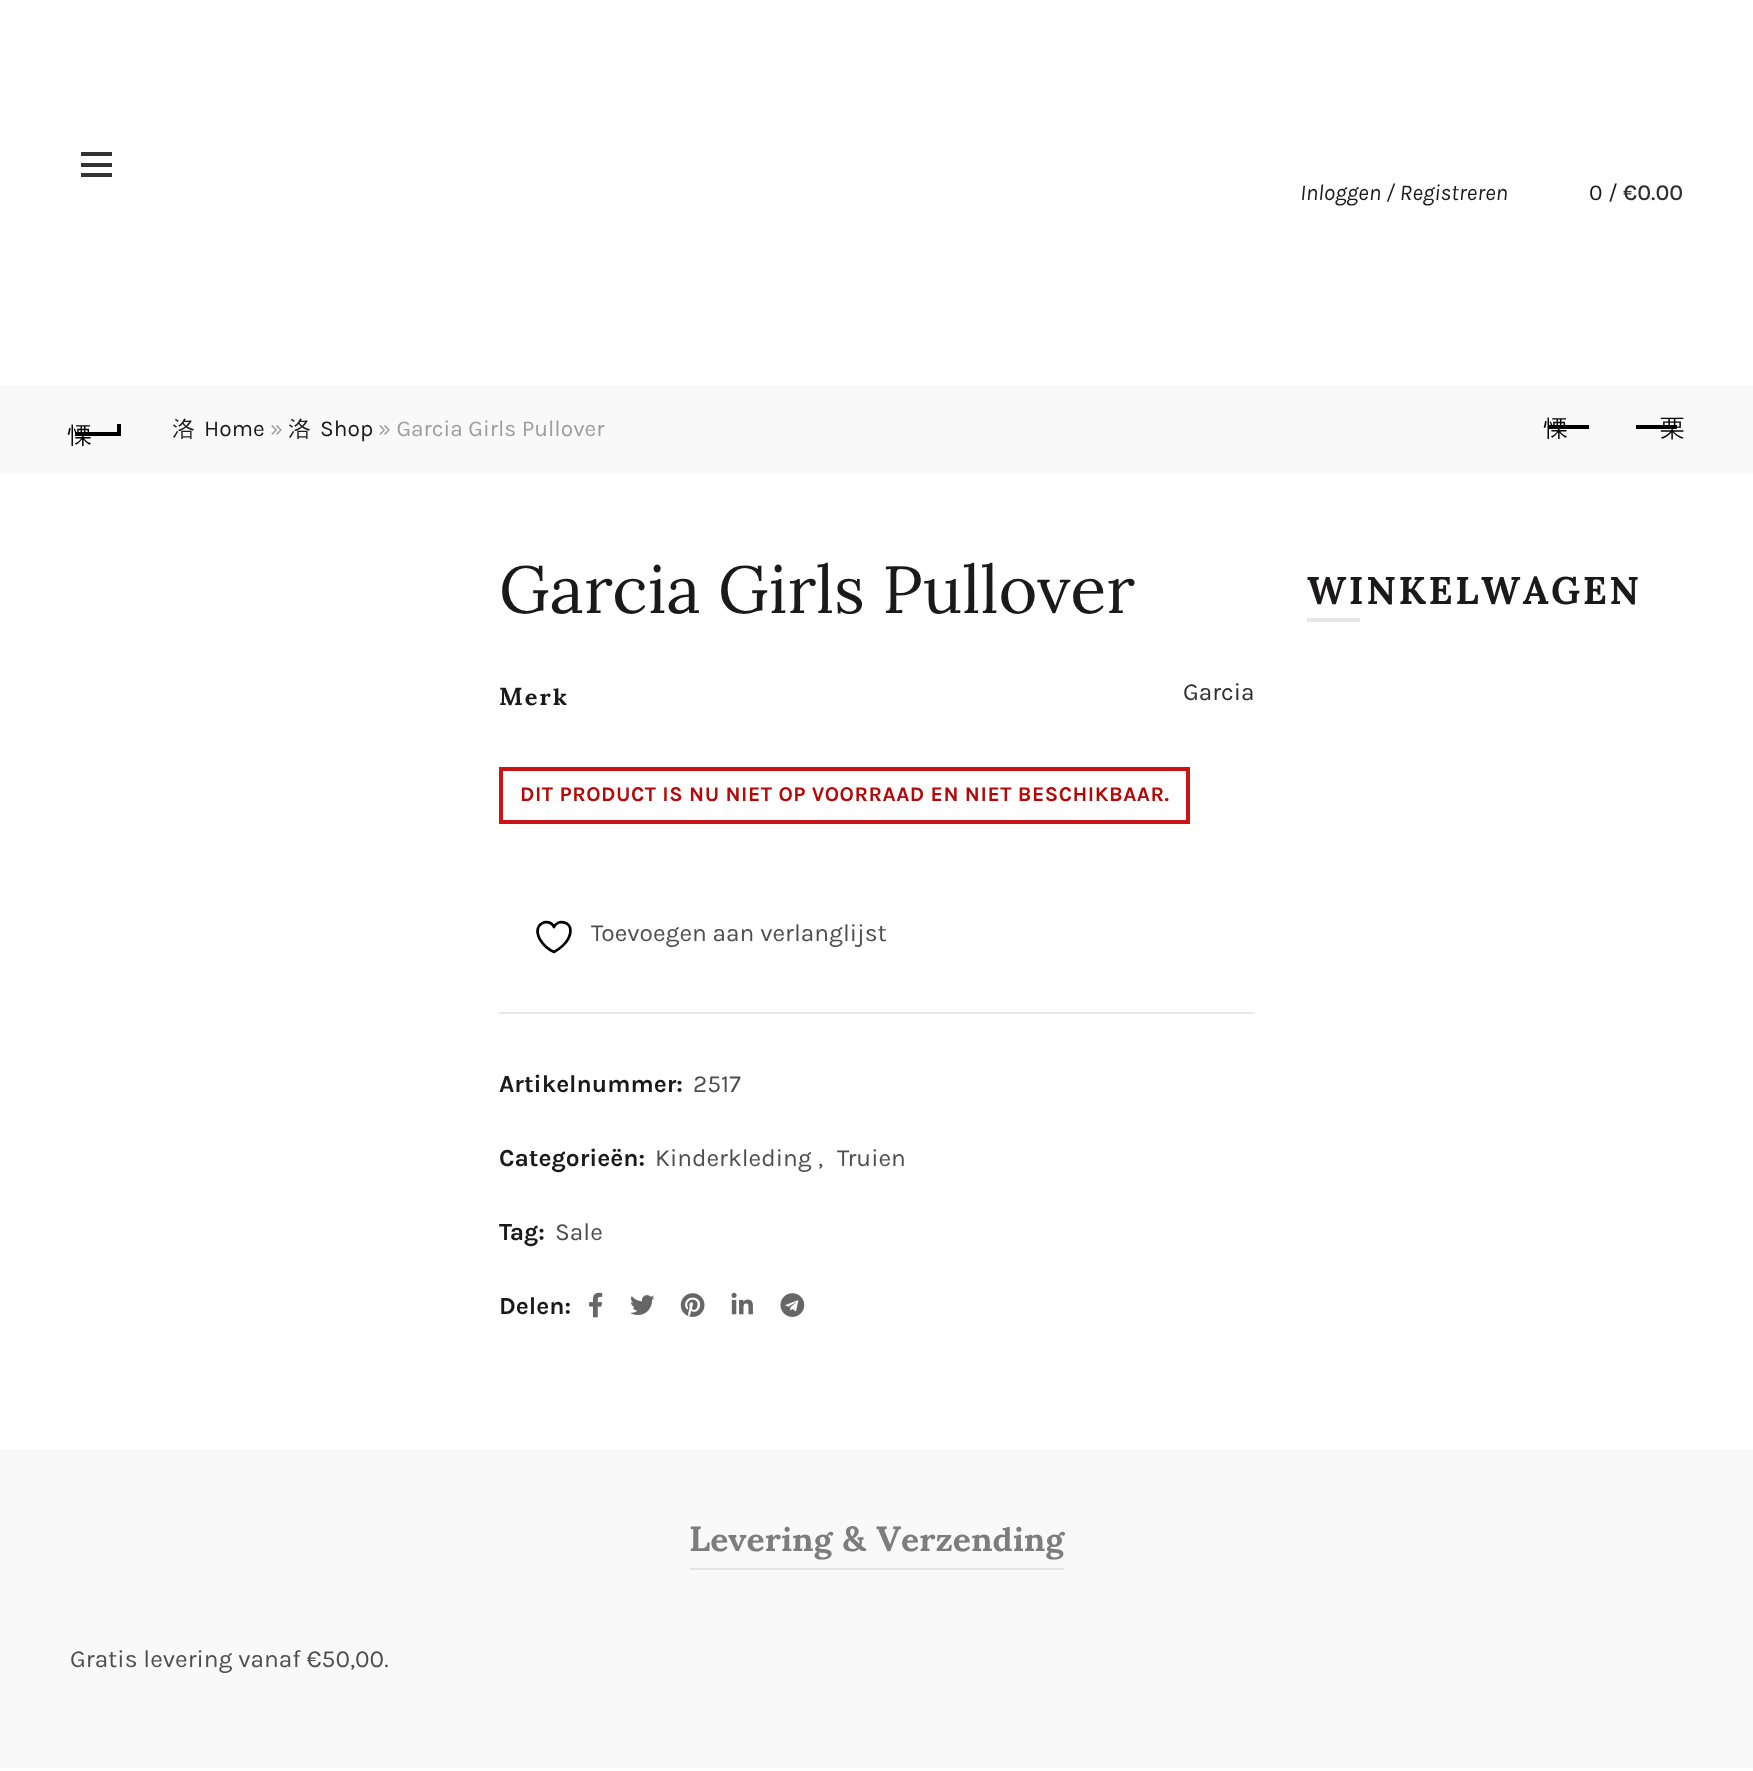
<?xml version="1.0" encoding="UTF-8"?>
<svg xmlns="http://www.w3.org/2000/svg" width="1753" height="1771">
    <rect width="100%" height="100%" fill="#FFFFFF"/>
    <rect x="81" y="163" width="31" height="4" fill="#333333"/>
    <rect x="81" y="152" width="31" height="4" fill="#333333"/>
    <rect x="81" y="173" width="31" height="4" fill="#333333"/>
    <text x="1300" y="200" font-family="Karla" font-size="22.75" font-style="italic" fill="#1B1919">Inloggen / Registreren</text>
    <text x="1589" y="200" font-family="Karla" font-size="22.75" fill="#1B1919">0 /</text>
    <text x="1623" y="200" font-family="Karla" font-size="22.75" font-weight="500" fill="#2F2F2F">€0.00</text>
    <rect x="0" y="385" width="1753" height="88" fill="#F9F9F9"/>
    <rect x="75" y="432" width="44" height="4" fill="#000000"/>
    <text x="67" y="443" font-family="WenQuanYi Zen Hei" font-size="24.5" font-weight="500" fill="#000000">慄</text>
    <rect x="117" y="424" width="4" height="12" fill="#000000"/>
    <text x="172" y="436" font-family="WenQuanYi Zen Hei" font-size="22.75" font-weight="500" fill="#1B1919">洛</text>
    <text x="204" y="436" font-family="Karla" font-size="22.75" fill="#1B1919">Home</text>
    <text x="270" y="436" font-family="Karla" font-size="22.75" fill="#9E9E9E">»</text>
    <text x="288" y="436" font-family="WenQuanYi Zen Hei" font-size="22.75" font-weight="500" fill="#1B1919">洛</text>
    <text x="320" y="436" font-family="Karla" font-size="22.75" fill="#1B1919">Shop</text>
    <text x="378" y="436" font-family="Karla" font-size="22.75" fill="#9E9E9E">» Garcia Girls Pullover</text>
    <rect x="1549" y="425" width="40" height="4" fill="#000000"/>
    <text x="1543" y="436" font-family="WenQuanYi Zen Hei" font-size="24.5" font-weight="500" fill="#000000">慄</text>
    <rect x="1636" y="425" width="41" height="4" fill="#000000"/>
    <text x="1660" y="436" font-family="WenQuanYi Zen Hei" font-size="24.5" font-weight="500" fill="#000000">栗</text>
    <text x="499" y="613" font-family="Lora" font-size="66.5" fill="#1B1919">Garcia Girls Pullover</text>
    <text x="499" y="705" font-family="Sumana" font-size="24.5" font-weight="700" letter-spacing="2" fill="#1B1919">Merk</text>
    <text x="1183" y="700" font-family="Karla" font-size="24.5" fill="#2F2F2F">Garcia</text>
    <rect x="501" y="769" width="687" height="53" fill="none" stroke="#CC1414" stroke-width="4"/>
    <text x="520" y="801" font-family="Karla" font-size="21" font-weight="700" letter-spacing="0.53" fill="#B50808">DIT PRODUCT IS NU NIET OP VOORRAAD EN NIET BESCHIKBAAR.</text>
    <path d="M 570.5 930.5 C 570.5 921.5 557.5 919 554 927 C 549.5 917 531 923 540 939.5 C 543 944.5 548.5 949.5 554 952 C 554 952 570.5 943.5 570.5 930.5 Z" fill="none" stroke="#000000" stroke-width="2.7" stroke-linecap="round" stroke-linejoin="round"/>
    <text x="591" y="941" font-family="Karla" font-size="24.5" fill="#4E4E4E">Toevoegen aan verlanglijst</text>
    <rect x="499" y="1012" width="756" height="2" fill="#E8E8E8"/>
    <text x="499" y="1092" font-family="Karla" font-size="24.5" font-weight="700" fill="#1B1919">Artikelnummer:</text>
    <text x="693" y="1092" font-family="Karla" font-size="24.5" fill="#4E4E4E">2517</text>
    <text x="499" y="1166" font-family="Karla" font-size="24.5" font-weight="700" fill="#1B1919">Categorieën:</text>
    <text x="655" y="1166" font-family="Karla" font-size="24.5" fill="#4E4E4E">Kinderkleding</text>
    <text x="818" y="1166" font-family="Karla" font-size="24.5" fill="#4E4E4E">,</text>
    <text x="837" y="1166" font-family="Karla" font-size="24.5" fill="#4E4E4E">Truien</text>
    <text x="499" y="1240" font-family="Karla" font-size="24.5" font-weight="700" fill="#1B1919">Tag:</text>
    <text x="555" y="1240" font-family="Karla" font-size="24.5" fill="#4E4E4E">Sale</text>
    <text x="499" y="1314" font-family="Karla" font-size="24.5" font-weight="700" fill="#1B1919">Delen:</text>
    <image x="589" y="1292" width="14" height="26" href="img_01.png"/>
    <image x="630" y="1295" width="25" height="20" href="img_02.png"/>
    <image x="680" y="1293" width="25" height="24" href="img_03.png"/>
    <image x="731" y="1292" width="22" height="23" href="img_04.png"/>
    <image x="780" y="1293" width="25" height="24" href="img_05.png"/>
    <text x="1307" y="604" font-family="Sumana" font-size="38.5" font-weight="700" letter-spacing="2.6" fill="#1B1919">WINKELWAGEN</text>
    <rect x="1307" y="618" width="53" height="4" fill="#E6E6E6"/>
    <rect x="0" y="1449" width="1753" height="319" fill="#F9F9F9"/>
    <rect x="690" y="1568" width="374" height="2" fill="#E4E4E4"/>
    <text x="689" y="1551" font-family="Sumana" font-size="35" font-weight="700" fill="#7D7D7D">Levering &amp; Verzending</text>
    <text x="70" y="1667" font-family="Karla" font-size="24.5" fill="#4E4E4E">Gratis levering vanaf €50,00.</text>
</svg>
